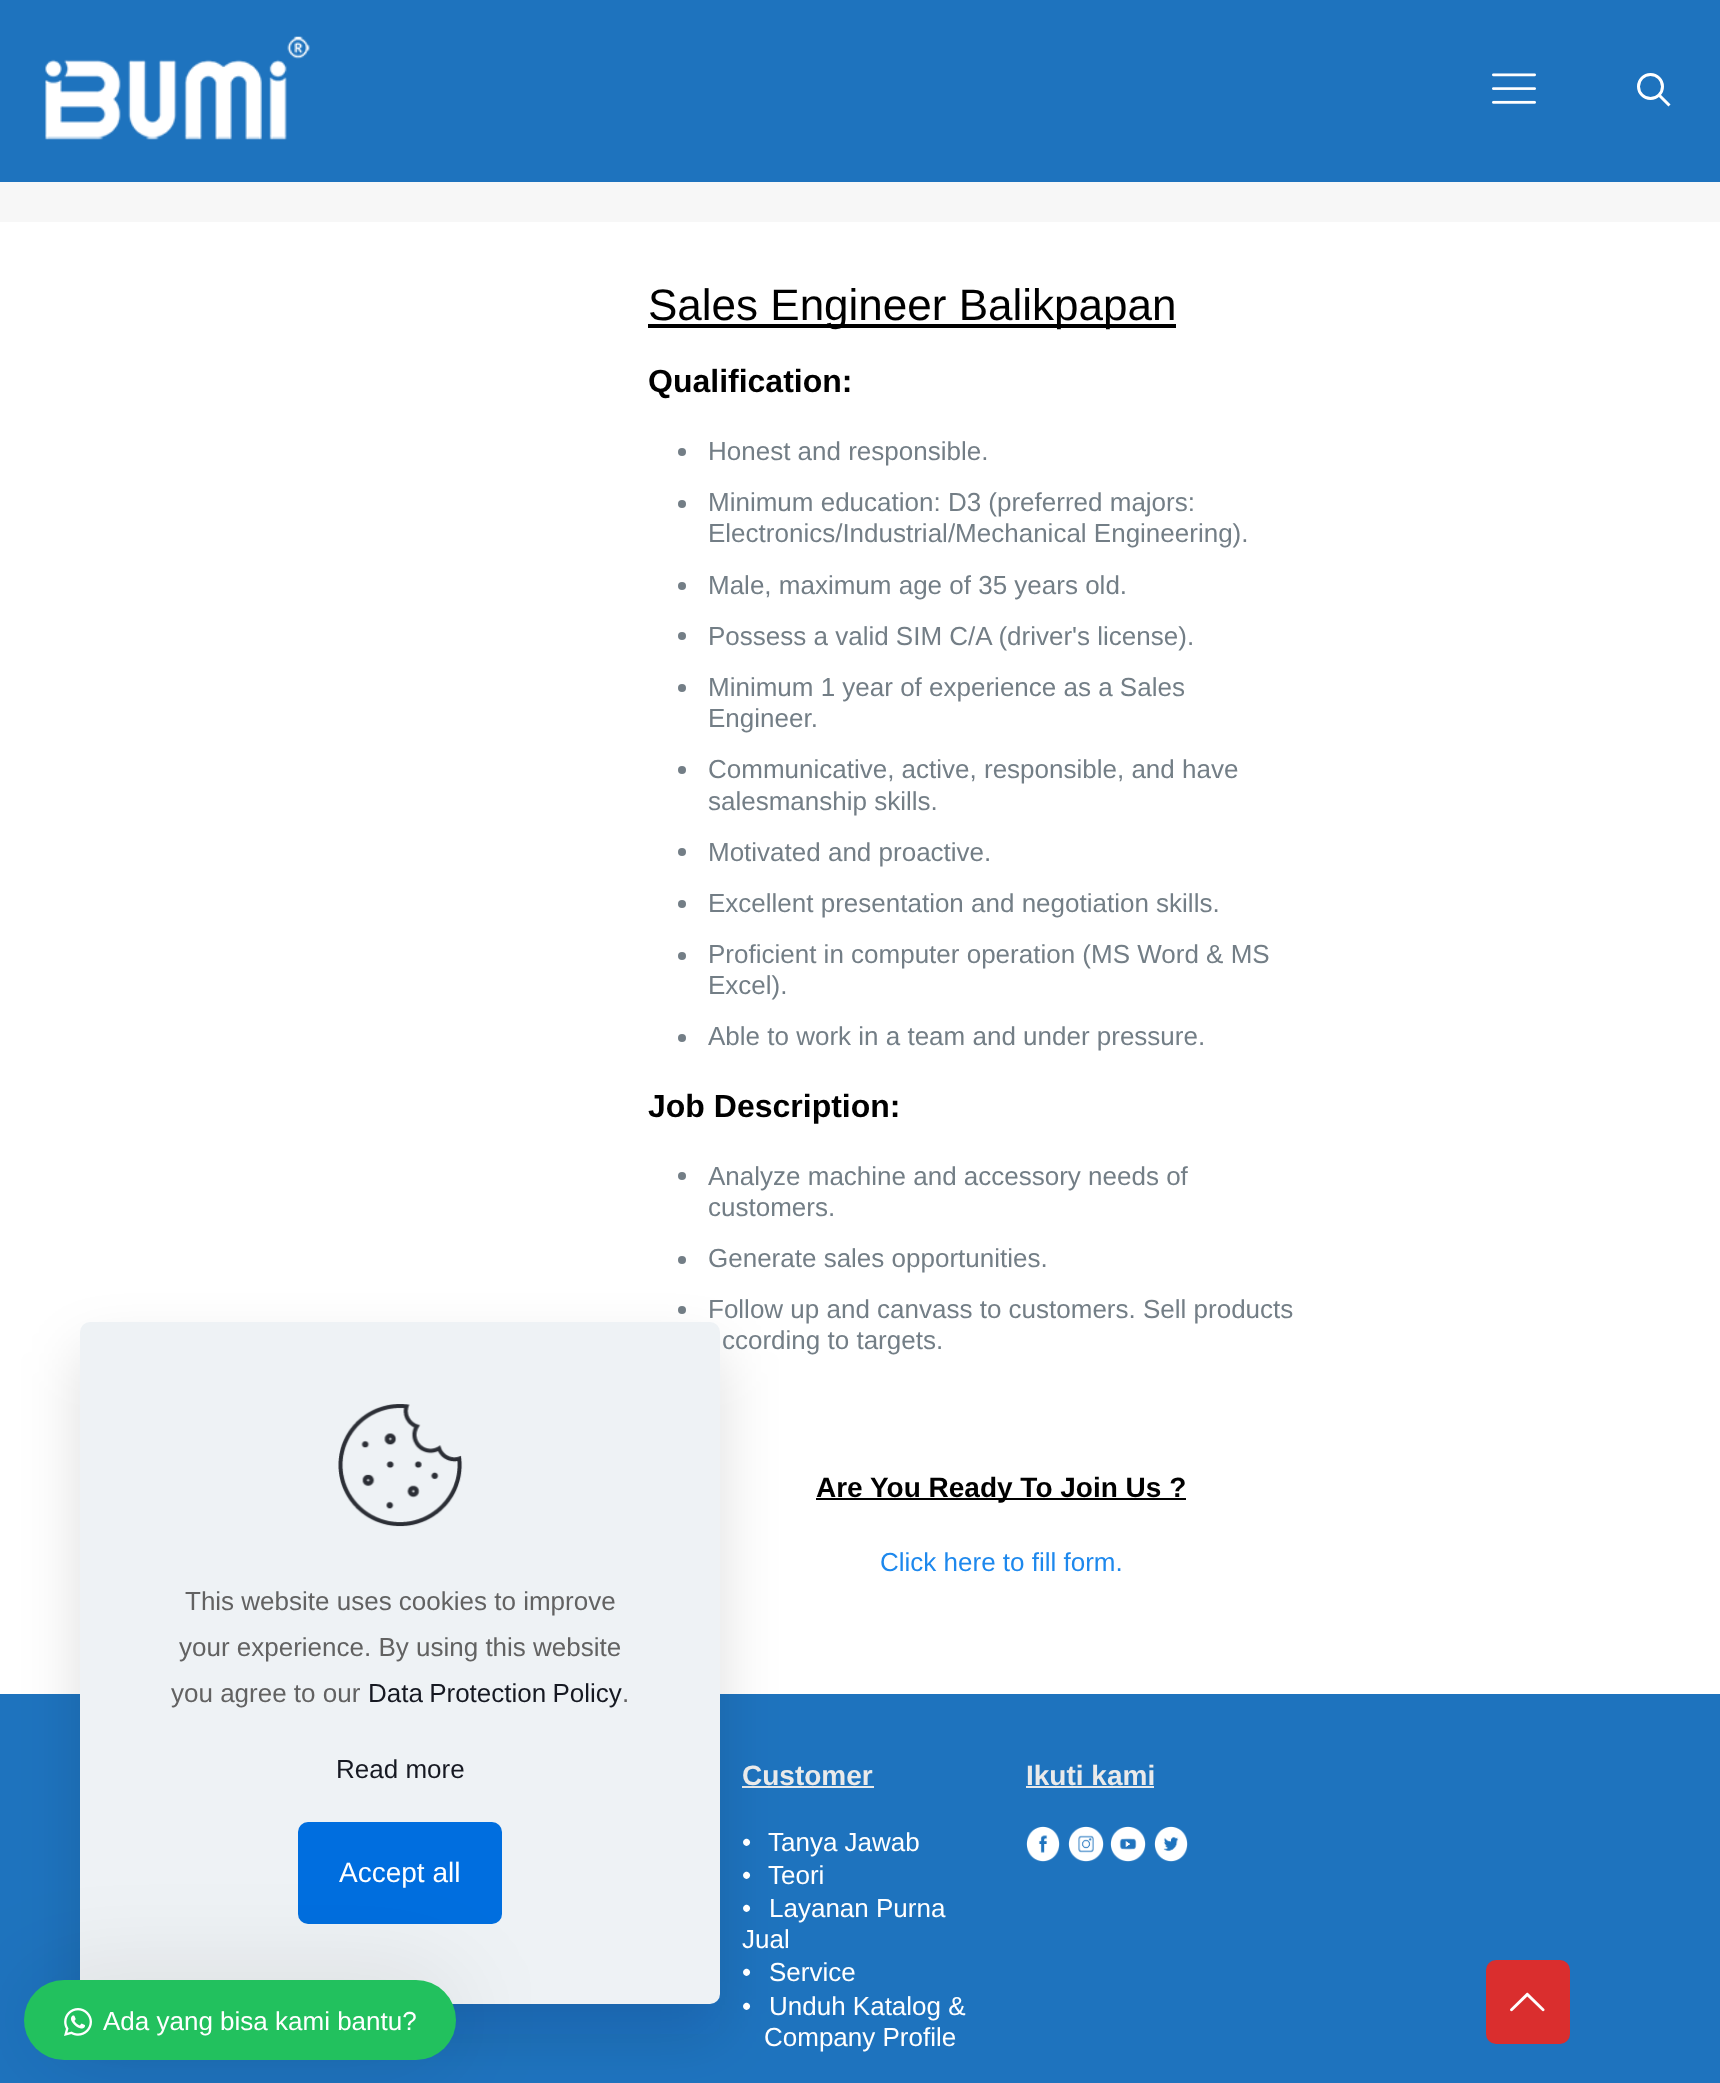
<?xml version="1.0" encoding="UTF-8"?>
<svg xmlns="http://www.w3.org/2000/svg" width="1720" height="2083">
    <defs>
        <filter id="blur1" x="-50%" y="-200%" width="200%" height="500%"><feGaussianBlur stdDeviation="30"/></filter>
        <filter id="blur2" x="-50%" y="-200%" width="200%" height="500%"><feGaussianBlur stdDeviation="50"/></filter>
    </defs>
    <rect width="100%" height="100%" fill="#FFFFFF"/>
    <circle cx="682" cy="1260" r="4" fill="#737E86"/>
    <circle cx="682" cy="1310" r="4" fill="#737E86"/>
    <rect x="0" y="1694" width="1720" height="389" fill="#1E73BE"/>
    <rect x="742" y="1786" width="132" height="2" fill="#EAEAEA"/>
    <rect x="80" y="1352" width="640" height="682" rx="10" fill="#010727" fill-opacity="0.13" filter="url(#blur1)"/>
    <text x="708" y="1318" font-family="Liberation Sans" font-size="26" fill="#737E86">Follow up and canvass to customers. Sell products</text>
    <rect x="80" y="1322" width="640" height="682" rx="10" fill="#EEF2F5"/>
    <image x="338" y="1404" width="125" height="123" href="img_01.png"/>
    <text x="185" y="1610" font-family="Liberation Sans" font-size="26" fill="#626262">This website uses cookies to improve</text>
    <text x="179" y="1656" font-family="Liberation Sans" font-size="26" fill="#626262">your experience. By using this website</text>
    <text x="171" y="1702" font-family="Liberation Sans" font-size="26" fill="#626262">you agree to our</text>
    <text x="368" y="1702" word-spacing="-1" font-family="Liberation Sans" font-size="26" fill="#161922">Data Protection Policy</text>
    <text x="622" y="1702" font-family="Liberation Sans" font-size="26" fill="#626262">.</text>
    <text x="336" y="1778" font-family="Liberation Sans" font-size="26" fill="#161922">Read more</text>
    <rect x="298" y="1822" width="204" height="102" rx="10" fill="#006EDF"/>
    <text x="339" y="1882" font-family="Liberation Sans" font-size="28" fill="#FFFFFF">Accept all</text>
    <rect x="0" y="0" width="1720" height="182" fill="#1E73BE"/>
    <image x="45" y="36" width="265" height="104" href="img_02.png"/>
    <image x="1492" y="73" width="44" height="31" href="img_03.png"/>
    <circle cx="1650.5" cy="86.5" r="12" fill="none" stroke="#FFFFFF" stroke-width="3"/>
    <path d="M 1659 95 L 1669.5 105.5" fill="none" stroke="#FFFFFF" stroke-width="3"/>
    <rect x="0" y="182" width="1720" height="40" fill="#F7F7F7"/>
    <rect x="648" y="324" width="528" height="4" fill="#000000"/>
    <text x="648" y="320" font-family="Liberation Sans" font-size="44" fill="#000000">Sales Engineer Balikpapan</text>
    <text x="648" y="392" font-family="Liberation Sans" font-size="32" font-weight="700" fill="#000000">Qualification:</text>
    <circle cx="682" cy="452" r="4" fill="#737E86"/>
    <text x="708" y="460" font-family="Liberation Sans" font-size="26" fill="#737E86">Honest and responsible.</text>
    <circle cx="682" cy="504" r="4" fill="#737E86"/>
    <text font-family="Liberation Sans" font-size="26" fill="#737E86">
        <tspan x="708" y="511">Minimum education: D3 (preferred majors:</tspan>
        <tspan x="708" y="542">Electronics/Industrial/Mechanical Engineering).</tspan>
    </text>
    <circle cx="682" cy="586" r="4" fill="#737E86"/>
    <text x="708" y="594" font-family="Liberation Sans" font-size="26" fill="#737E86">Male, maximum age of 35 years old.</text>
    <circle cx="682" cy="636" r="4" fill="#737E86"/>
    <text x="708" y="645" font-family="Liberation Sans" font-size="26" fill="#737E86">Possess a valid SIM C/A (driver's license).</text>
    <circle cx="682" cy="688" r="4" fill="#737E86"/>
    <text font-family="Liberation Sans" font-size="26" fill="#737E86">
        <tspan x="708" y="696">Minimum 1 year of experience as a Sales</tspan>
        <tspan x="708" y="727">Engineer.</tspan>
    </text>
    <circle cx="682" cy="770" r="4" fill="#737E86"/>
    <text font-family="Liberation Sans" font-size="26" fill="#737E86">
        <tspan x="708" y="778">Communicative, active, responsible, and have</tspan>
        <tspan x="708" y="810">salesmanship skills.</tspan>
    </text>
    <circle cx="682" cy="852" r="4" fill="#737E86"/>
    <text x="708" y="861" font-family="Liberation Sans" font-size="26" fill="#737E86">Motivated and proactive.</text>
    <circle cx="682" cy="904" r="4" fill="#737E86"/>
    <text x="708" y="912" font-family="Liberation Sans" font-size="26" fill="#737E86">Excellent presentation and negotiation skills.</text>
    <circle cx="682" cy="956" r="4" fill="#737E86"/>
    <text font-family="Liberation Sans" font-size="26" fill="#737E86">
        <tspan x="708" y="963">Proficient in computer operation (MS Word &amp; MS</tspan>
        <tspan x="708" y="994">Excel).</tspan>
    </text>
    <circle cx="682" cy="1038" r="4" fill="#737E86"/>
    <text x="708" y="1045" font-family="Liberation Sans" font-size="26" fill="#737E86">Able to work in a team and under pressure.</text>
    <text x="648" y="1117" font-family="Liberation Sans" font-size="32" font-weight="700" fill="#000000">Job Description:</text>
    <circle cx="682" cy="1176" r="4" fill="#737E86"/>
    <text font-family="Liberation Sans" font-size="26" fill="#737E86">
        <tspan x="708" y="1185">Analyze machine and accessory needs of</tspan>
        <tspan x="708" y="1216">customers.</tspan>
        <tspan x="708" y="1267">Generate sales opportunities.</tspan>
    </text>
    <text x="722" y="1349" font-family="Liberation Sans" font-size="26" fill="#737E86">ccording to targets.</text>
    <rect x="816" y="1498" width="370" height="2" fill="#000000"/>
    <text x="816" y="1497" font-family="Liberation Sans" font-size="28" font-weight="700" fill="#000000">Are You Ready To Join Us ?</text>
    <text x="880" y="1571" font-family="Liberation Sans" font-size="26" fill="#1D88ED">Click here to fill form.</text>
    <text x="742" y="1785" font-family="Liberation Sans" font-size="28" font-weight="700" fill="#EAEAEA">Customer</text>
    <text x="742" y="1851" font-family="Liberation Sans" font-size="26" fill="#FFFFFF">•</text>
    <text x="768" y="1851" font-family="Liberation Sans" font-size="26" fill="#FFFFFF">Tanya Jawab</text>
    <text x="742" y="1884" font-family="Liberation Sans" font-size="26" fill="#FFFFFF">•</text>
    <text x="768" y="1884" font-family="Liberation Sans" font-size="26" fill="#FFFFFF">Teori</text>
    <text x="742" y="1917" font-family="Liberation Sans" font-size="26" fill="#FFFFFF">•</text>
    <text x="769" y="1917" font-family="Liberation Sans" font-size="26" fill="#FFFFFF">Layanan Purna</text>
    <text font-family="Liberation Sans" font-size="26" fill="#FFFFFF">
        <tspan x="742" y="1948">Jual</tspan>
        <tspan x="742" y="1981">•</tspan>
    </text>
    <text x="769" y="1981" font-family="Liberation Sans" font-size="26" fill="#FFFFFF">Service</text>
    <text x="742" y="2015" font-family="Liberation Sans" font-size="26" fill="#FFFFFF">•</text>
    <text x="769" y="2015" font-family="Liberation Sans" font-size="26" fill="#FFFFFF">Unduh Katalog &amp;</text>
    <text x="764" y="2046" font-family="Liberation Sans" font-size="26" fill="#FFFFFF">Company Profile</text>
    <text x="1026" y="1785" font-family="Liberation Sans" font-size="28" font-weight="700" fill="#EAEAEA">Ikuti kami</text>
    <rect x="1026" y="1786" width="128" height="2" fill="#EAEAEA"/>
    <image x="1026" y="1826" width="34" height="36" href="img_04.png"/>
    <image x="1068" y="1826" width="36" height="36" href="img_05.png"/>
    <image x="1110" y="1826" width="36" height="36" href="img_06.png"/>
    <image x="1154" y="1826" width="34" height="36" href="img_07.png"/>
    <rect x="24" y="1980" width="432" height="80" rx="40" fill="#000000" fill-opacity="0.1" filter="url(#blur2)"/>
    <rect x="24" y="1980" width="432" height="80" rx="40" fill="#22C15E"/>
    <image x="64" y="2008" width="28" height="28" href="img_08.png"/>
    <text x="103" y="2030" font-family="Liberation Sans" font-size="26" fill="#FFFFFF">Ada yang bisa kami bantu?</text>
    <rect x="1486" y="1960" width="84" height="84" rx="10" fill="#DA2E2E"/>
    <image x="1510" y="1992" width="35" height="20" href="img_09.png"/>
</svg>
